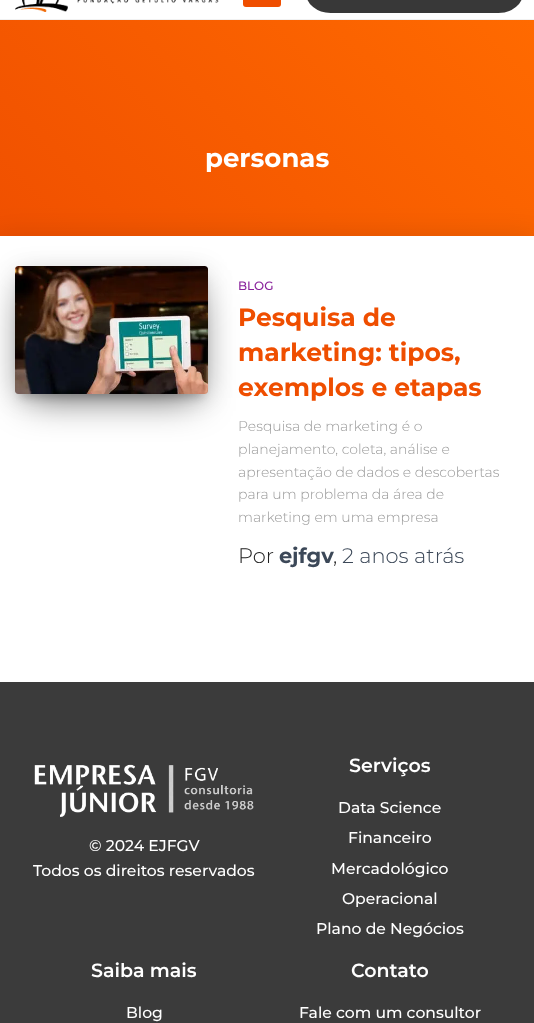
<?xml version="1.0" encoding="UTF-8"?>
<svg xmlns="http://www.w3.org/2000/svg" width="534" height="1023">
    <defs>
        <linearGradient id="g1" gradientUnits="userSpaceOnUse" x1="65" y1="361" x2="470" y2="-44"><stop offset="0" stop-color="#EF4E00"/><stop offset="1" stop-color="#FF6A00"/></linearGradient>
        <filter id="blur1" x="-50%" y="-200%" width="200%" height="500%"><feGaussianBlur stdDeviation="15"/></filter>
        <filter id="blur2" x="-50%" y="-200%" width="200%" height="500%"><feGaussianBlur stdDeviation="5"/></filter>
        <filter id="blur3" x="-50%" y="-200%" width="200%" height="500%"><feGaussianBlur stdDeviation="12.5"/></filter>
        <filter id="blur4" x="-50%" y="-200%" width="200%" height="500%"><feGaussianBlur stdDeviation="19"/></filter>
    </defs>
    <rect width="100%" height="100%" fill="#FFFFFF"/>
    <rect x="0" y="19" width="534" height="1" fill="#F1F1F1"/>
    <image x="15" y="0" width="204" height="12" href="img_01.png"/>
    <rect x="243" y="-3" width="38" height="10" rx="3" fill="#EF4E00"/>
    <rect x="305" y="-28" width="219" height="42" rx="25.5" fill="#383838" stroke="#FFFFFF" stroke-width="2"/>
    <rect x="0" y="20" width="534" height="216" fill="url(#g1)"/>
    <text x="205" y="167" font-family="Montserrat" font-size="26" font-weight="700" fill="#FFFFFF">personas</text>
    <rect x="-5" y="237" width="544" height="456" fill="#000000" fill-opacity="0.12" filter="url(#blur1)"/>
    <rect x="0" y="236" width="534" height="446" fill="#FFFFFF"/>
    <rect x="20" y="279" width="183" height="118" fill="#000000" fill-opacity="0.2" filter="url(#blur2)"/>
    <rect x="15" y="270" width="193" height="128" rx="3" fill="#000000" fill-opacity="0.12" filter="url(#blur3)"/>
    <rect x="27" y="294" width="169" height="104" fill="#000000" fill-opacity="0.56" filter="url(#blur4)"/>
    <image x="15" y="266" width="193" height="128" href="img_02.png"/>
    <text x="238" y="290" font-family="Montserrat" font-size="12" font-weight="500" fill="#89229B">BLOG</text>
    <text font-family="Montserrat" font-size="25" font-weight="700" fill="#EF4E00">
        <tspan x="238" y="326">Pesquisa de</tspan>
        <tspan x="238" y="361">marketing: tipos,</tspan>
        <tspan x="238" y="396">exemplos e etapas</tspan>
    </text>
    <text font-family="Montserrat" font-size="14" font-weight="300" fill="#999999">
        <tspan x="238" y="431">Pesquisa de marketing é o</tspan>
        <tspan x="238" y="454">planejamento, coleta, análise e</tspan>
        <tspan x="238" y="477">apresentação de dados e descobertas</tspan>
        <tspan x="238" y="499">para um problema da área de</tspan>
        <tspan x="238" y="522">marketing em uma empresa</tspan>
    </text>
    <text x="238" y="563" font-family="Montserrat" font-size="21" font-weight="300" fill="#212121">Por</text>
    <text x="279" y="563" font-family="Montserrat" font-size="21" font-weight="700" fill="#3C4858">ejfgv</text>
    <text x="333" y="563" font-family="Montserrat" font-size="21" font-weight="300" fill="#212121">,</text>
    <text x="342" y="563" font-family="Montserrat" font-size="21" font-weight="300" fill="#3C4858">2 anos atrás</text>
    <rect x="0" y="682" width="534" height="341" fill="#3B3B3B"/>
    <image x="34" y="764" width="220" height="53" href="img_03.png"/>
    <text x="89" y="851" font-family="Montserrat" font-size="15.6" font-weight="500" fill="#FFFFFF">© 2024 EJFGV</text>
    <text x="33" y="876" font-family="Montserrat" font-size="15.6" font-weight="500" fill="#FFFFFF">Todos os direitos reservados</text>
    <text x="349" y="772" font-family="Montserrat" font-size="19" font-weight="600" fill="#FFFFFF">Serviços</text>
    <text x="338" y="813" font-family="Montserrat" font-size="15.6" font-weight="500" fill="#FFFFFF">Data Science</text>
    <text x="348" y="843" font-family="Montserrat" font-size="15.6" font-weight="500" fill="#FFFFFF">Financeiro</text>
    <text x="331" y="874" font-family="Montserrat" font-size="15.6" font-weight="500" fill="#FFFFFF">Mercadológico</text>
    <text x="342" y="904" font-family="Montserrat" font-size="15.6" font-weight="500" fill="#FFFFFF">Operacional</text>
    <text x="316" y="934" font-family="Montserrat" font-size="15.6" font-weight="500" fill="#FFFFFF">Plano de Negócios</text>
    <text x="91" y="977" font-family="Montserrat" font-size="19" font-weight="600" fill="#FFFFFF">Saiba mais</text>
    <text x="126" y="1018" font-family="Montserrat" font-size="15.6" font-weight="500" fill="#FFFFFF">Blog</text>
    <text x="351" y="977" font-family="Montserrat" font-size="19" font-weight="600" fill="#FFFFFF">Contato</text>
    <text x="299" y="1018" font-family="Montserrat" font-size="15.6" font-weight="500" fill="#FFFFFF">Fale com um consultor</text>
</svg>
